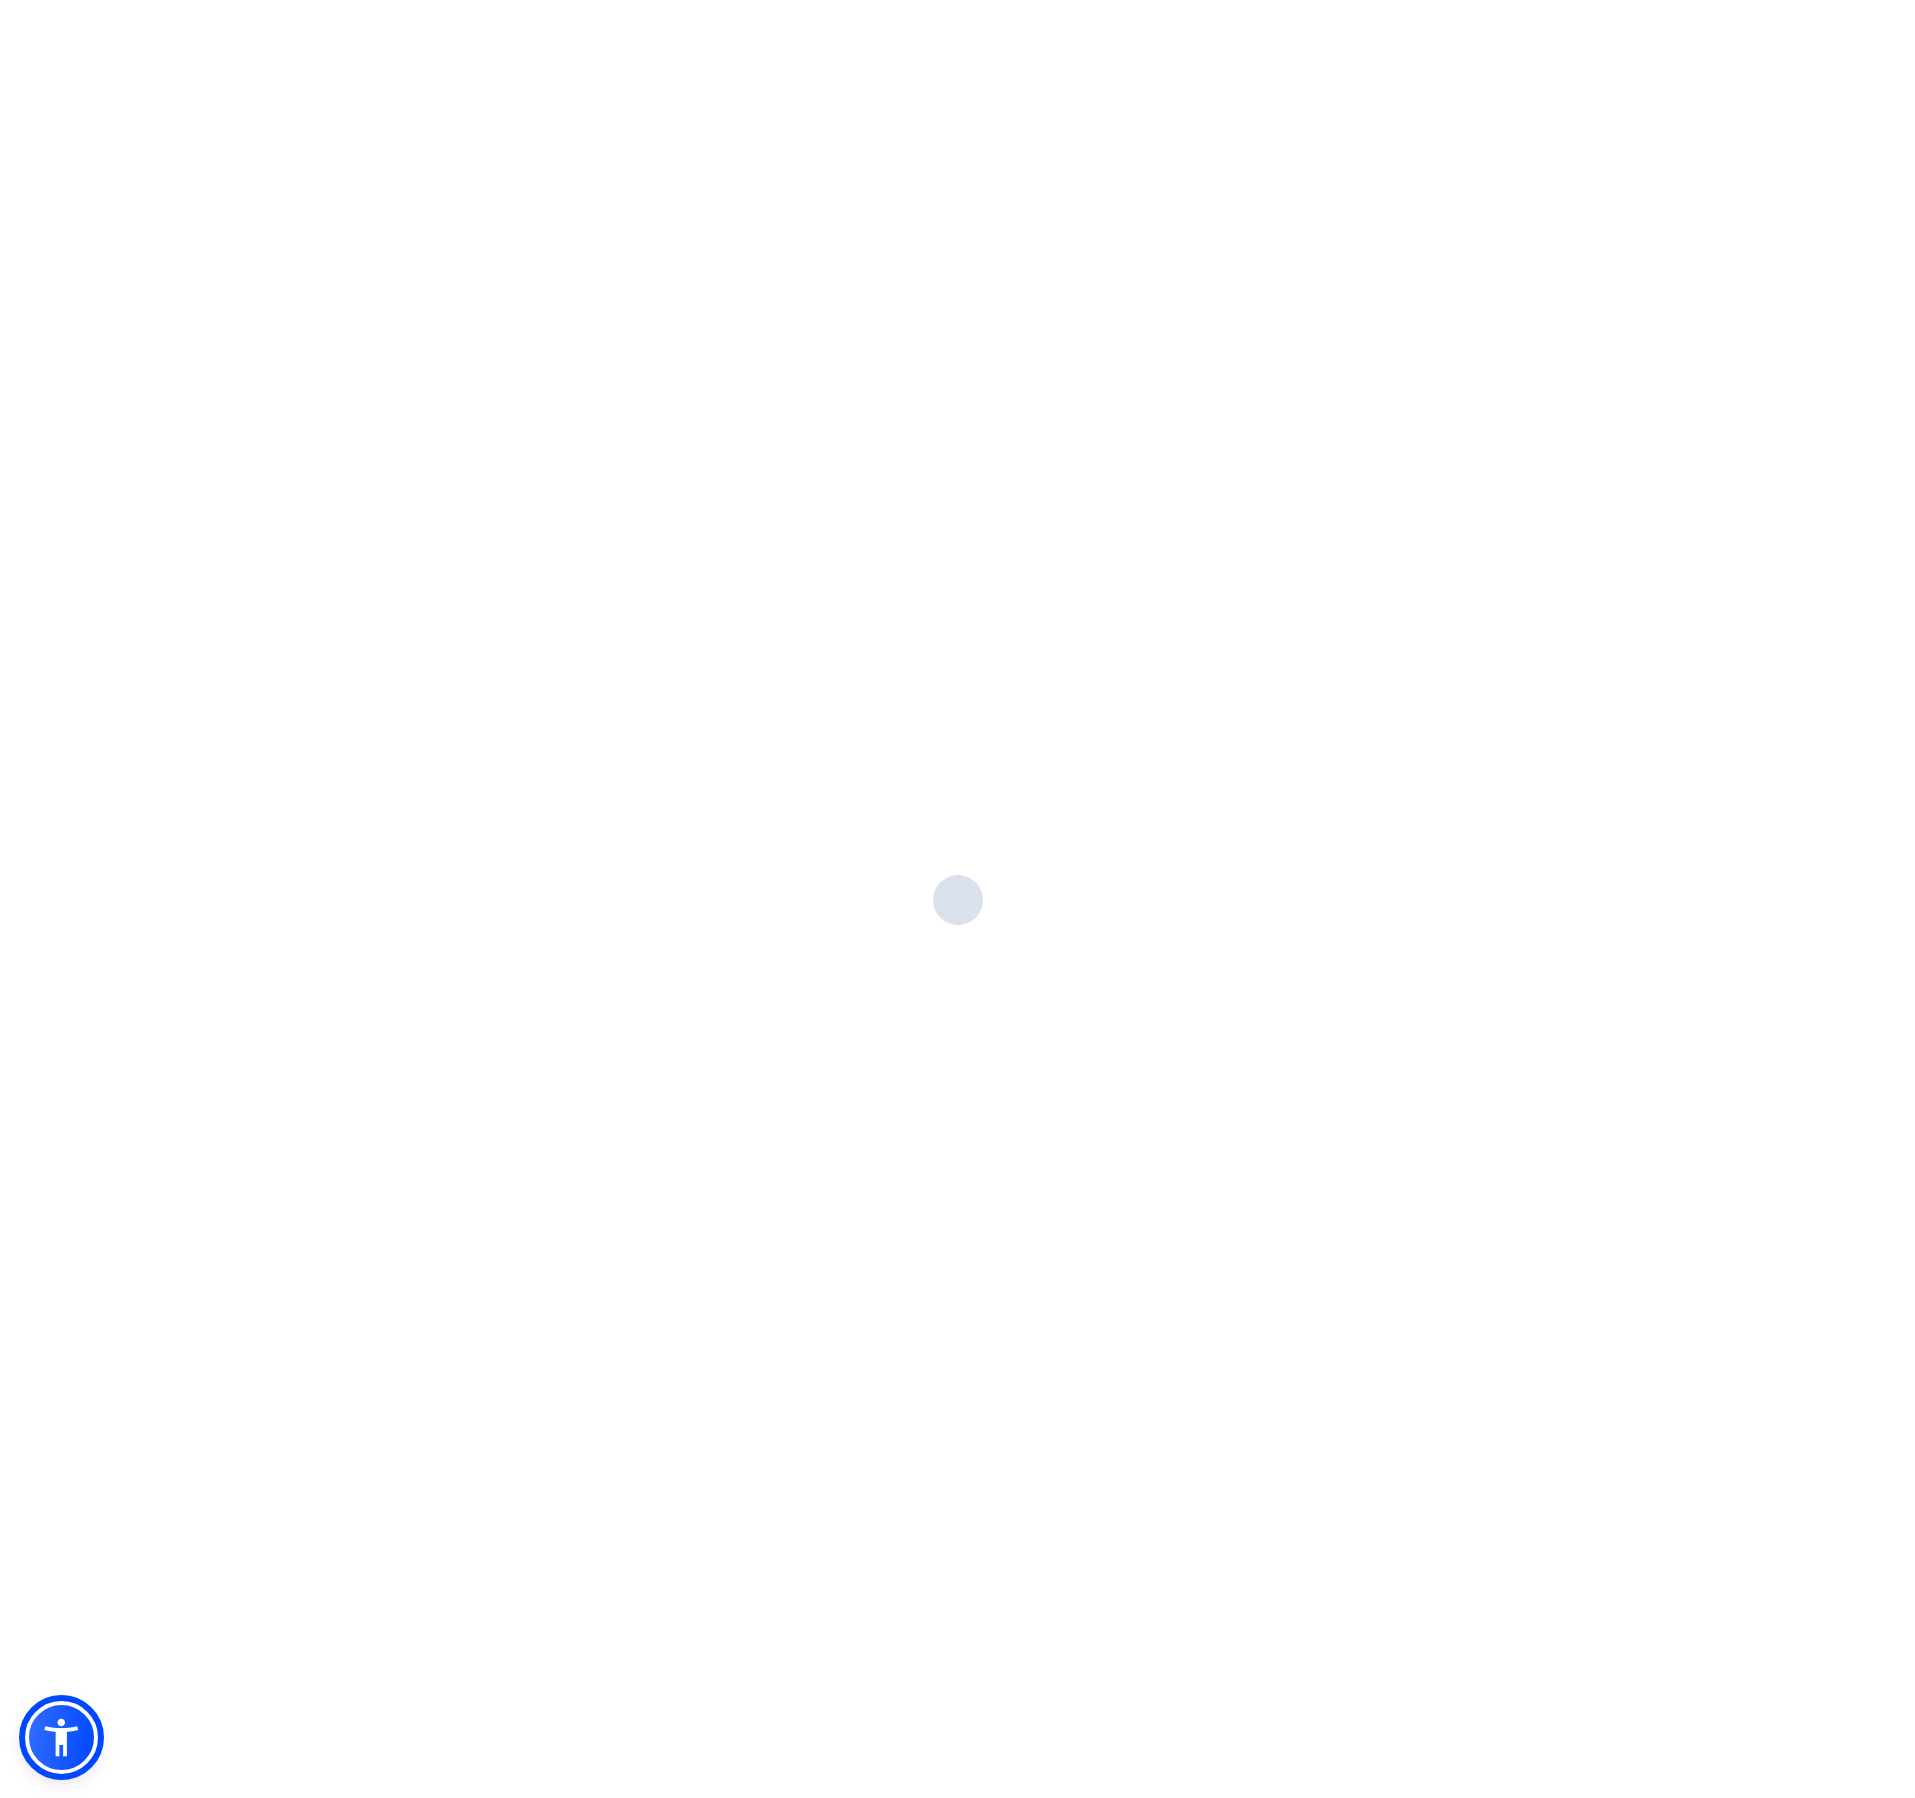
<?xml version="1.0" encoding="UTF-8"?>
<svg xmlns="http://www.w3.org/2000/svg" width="1915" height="1798">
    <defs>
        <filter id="blur1" x="-50%" y="-200%" width="200%" height="500%"><feGaussianBlur stdDeviation="2.5"/></filter>
        <filter id="blur2" x="-50%" y="-200%" width="200%" height="500%"><feGaussianBlur stdDeviation="9.5"/></filter>
        <clipPath id="clip1"><rect x="25" y="1701" width="73" height="73" rx="36.5"/></clipPath>
        <linearGradient id="g1" gradientUnits="userSpaceOnUse" x1="26" y1="1734" x2="97" y2="1741"><stop offset="0" stop-color="#326CFF"/><stop offset="1" stop-color="#0048FF"/></linearGradient>
    </defs>
    <rect width="100%" height="100%" fill="#FFFFFF"/>
    <circle cx="958" cy="900" r="25" fill="#DBE1EC"/>
    <rect x="25" y="1704" width="73" height="72" rx="36" fill="#5D6494" fill-opacity="0.2" filter="url(#blur1)"/>
    <rect x="25" y="1708" width="73" height="72" rx="36" fill="#252C61" fill-opacity="0.15" filter="url(#blur2)"/>
    <g clip-path="url(#clip1)">
        <rect x="29" y="1705" width="65" height="65" fill="url(#g1)"/>
    </g>
    <circle cx="61.5" cy="1737.5" r="34.5" fill="none" stroke="#FFFFFF" stroke-width="4"/>
    <circle cx="61.5" cy="1737.5" r="39.5" fill="none" stroke="#0048FF" stroke-width="6"/>
    <image x="44" y="1718" width="35" height="39" href="img_01.png"/>
</svg>
